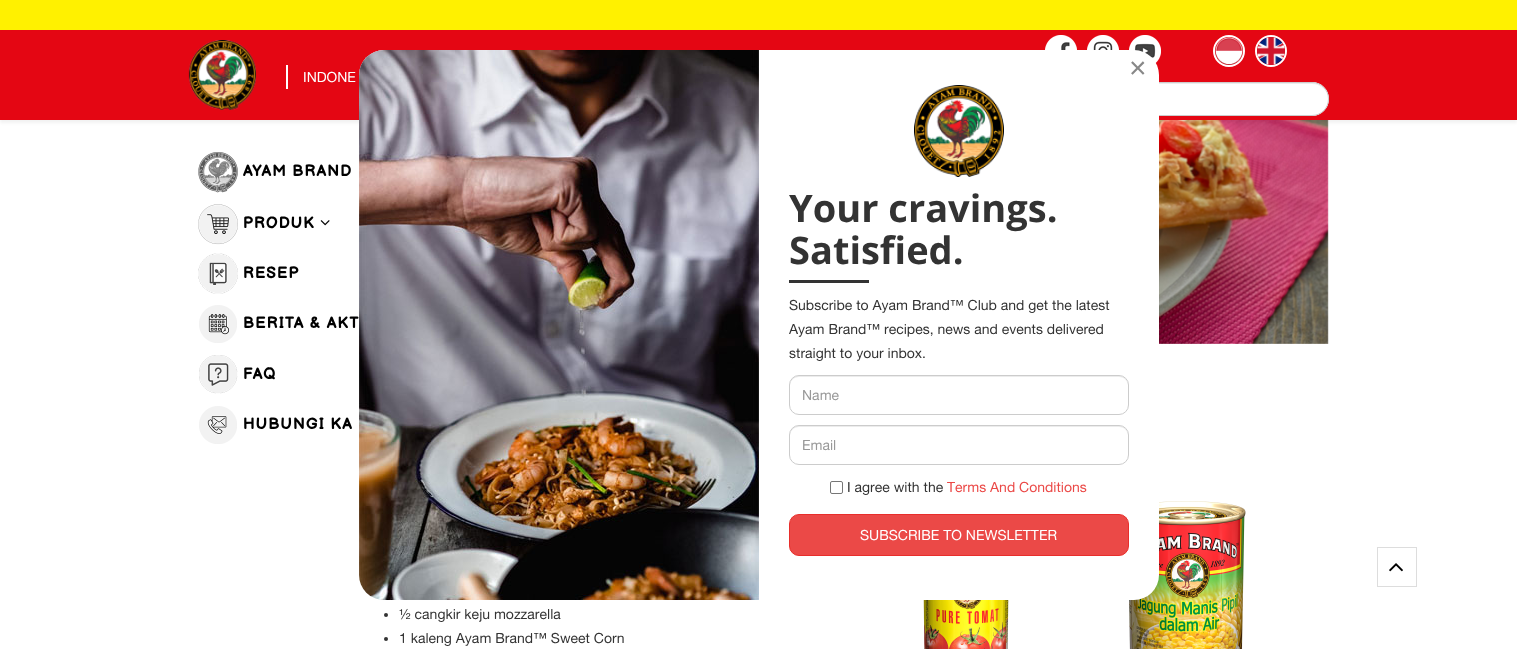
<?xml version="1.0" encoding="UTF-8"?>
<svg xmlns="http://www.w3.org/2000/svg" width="1517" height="649">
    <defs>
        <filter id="blur1" x="-50%" y="-200%" width="200%" height="500%"><feGaussianBlur stdDeviation="1.5"/></filter>
    </defs>
    <rect width="100%" height="100%" fill="#FFFFFF"/>
    <rect x="0" y="0" width="1517" height="30" fill="#FFF100"/>
    <image x="1159" y="120" width="170" height="224" href="img_14.png"/>
    <rect x="0" y="33" width="1517" height="90" fill="#000000" fill-opacity="0.05" filter="url(#blur1)"/>
    <rect x="0" y="30" width="1517" height="90" fill="#E40613"/>
    <image x="188" y="40" width="68" height="70" href="img_01.png"/>
    <rect x="286" y="65" width="2" height="24" fill="#FFFFFF"/>
    <text x="303" y="82" font-family="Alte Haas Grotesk" font-size="14" fill="#FFFFFF">INDONE</text>
    <image x="1045" y="35" width="32" height="15" href="img_02.png"/>
    <image x="1087" y="35" width="32" height="15" href="img_03.png"/>
    <image x="1129" y="35" width="32" height="28" href="img_04.png"/>
    <circle cx="1229" cy="51" r="15" fill="none" stroke="#FFFFFF" stroke-width="2"/>
    <image x="1215" y="37" width="28" height="28" href="img_05.png"/>
    <circle cx="1271" cy="51" r="15" fill="none" stroke="#FFFFFF" stroke-width="2"/>
    <image x="1257" y="37" width="28" height="28" href="img_06.png"/>
    <rect x="929" y="82" width="400" height="34" rx="17" fill="#FFFFFF"/>
    <path d="M 946 84 H 1312 C 1321 84 1328 91 1328 99 C 1328 91 1321 83 1312 83 H 946 C 937 83 930 91 930 99 C 930 91 937 84 946 84 Z" fill="#ECECEC"/>
    <rect x="929.5" y="82.5" width="399" height="33" rx="16.5" fill="none" stroke="#CCCCCC"/>
    <image x="198" y="152" width="40" height="41" href="img_07.png"/>
    <text x="243" y="176" font-family="Balsamiq Sans" font-size="16" font-weight="700" letter-spacing="1" fill="#000000">AYAM BRAND</text>
    <image x="198" y="204" width="40" height="41" href="img_08.png"/>
    <text x="243" y="228" font-family="Balsamiq Sans" font-size="16" font-weight="700" letter-spacing="1" fill="#000000">PRODUK</text>
    <image x="320" y="220" width="10" height="6" href="img_09.png"/>
    <image x="198" y="253" width="40" height="41" href="img_10.png"/>
    <text x="243" y="278" font-family="Balsamiq Sans" font-size="16" font-weight="700" letter-spacing="1" fill="#000000">RESEP</text>
    <image x="199" y="305" width="38" height="38" href="img_11.png"/>
    <text x="243" y="328" font-family="Balsamiq Sans" font-size="16" font-weight="700" letter-spacing="1" fill="#000000">BERITA &amp; AKT</text>
    <image x="199" y="355" width="39" height="39" href="img_12.png"/>
    <text x="243" y="379" font-family="Balsamiq Sans" font-size="16" font-weight="700" letter-spacing="1" fill="#000000">FAQ</text>
    <image x="199" y="406" width="38" height="38" href="img_13.png"/>
    <text x="243" y="429" font-family="Balsamiq Sans" font-size="16" font-weight="700" letter-spacing="1" fill="#000000">HUBUNGI KA</text>
    <circle cx="386" cy="615" r="2" fill="#333333"/>
    <text x="399" y="619" font-family="Alte Haas Grotesk" font-size="14" fill="#333333">½ cangkir keju mozzarella</text>
    <circle cx="386" cy="639" r="2" fill="#333333"/>
    <text x="399" y="643" font-family="Alte Haas Grotesk" font-size="14" fill="#333333">1 kaleng Ayam Brand™ Sweet Corn</text>
    <image x="922" y="600" width="88" height="49" href="img_15.png"/>
    <image x="1126" y="501" width="120" height="148" href="img_16.png"/>
    <rect x="359" y="50" width="800" height="550" rx="25" fill="#FFFFFF"/>
    <text x="1129" y="78" font-family="Liberation Sans" font-size="30" fill="#888888">×</text>
    <image x="359" y="50" width="400" height="550" href="img_17.png"/>
    <image x="914" y="85" width="90" height="92" href="img_18.png"/>
    <text font-family="Open Sans" font-size="38" font-weight="700" fill="#333333">
        <tspan x="789" y="222">Your cravings.</tspan>
        <tspan x="789" y="264">Satisfied.</tspan>
    </text>
    <rect x="789" y="280" width="80" height="3" fill="#333333"/>
    <text font-family="Alte Haas Grotesk" font-size="14" fill="#333333">
        <tspan x="789" y="310">Subscribe to Ayam Brand™ Club and get the latest</tspan>
        <tspan x="789" y="334">Ayam Brand™ recipes, news and events delivered</tspan>
        <tspan x="789" y="358">straight to your inbox.</tspan>
    </text>
    <path d="M 799 377 H 1119 C 1124 377 1128 381 1128 386 C 1128 381 1125 376 1119 376 H 797 C 792 377 790 381 790 386 C 790 381 794 377 799 377 Z" fill="#ECECEC"/>
    <rect x="789.5" y="375.5" width="339" height="39" rx="9.5" fill="none" stroke="#CCCCCC"/>
    <text x="802" y="400" font-family="Alte Haas Grotesk" font-size="14" fill="#999999">Name</text>
    <path d="M 799 427 H 1119 C 1124 427 1128 431 1128 436 C 1128 431 1125 426 1119 426 H 797 C 792 427 790 431 790 436 C 790 431 794 427 799 427 Z" fill="#ECECEC"/>
    <rect x="789.5" y="425.5" width="339" height="39" rx="9.5" fill="none" stroke="#CCCCCC"/>
    <text x="802" y="450" font-family="Alte Haas Grotesk" font-size="14" fill="#999999">Email</text>
    <rect x="830.5" y="481.5" width="12" height="12" rx="1.5" fill="none" stroke="#767676"/>
    <text x="847" y="492" font-family="Alte Haas Grotesk" font-size="14" fill="#333333">I agree with the</text>
    <text x="947" y="492" font-family="Alte Haas Grotesk" font-size="14" fill="#EB4947">Terms And Conditions</text>
    <rect x="789.5" y="514.5" width="339" height="41" rx="9.5" fill="#EB4947" stroke="#E82E2B"/>
    <text x="860" y="540" font-family="Alte Haas Grotesk" font-size="14" fill="#FFFFFF">SUBSCRIBE TO NEWSLETTER</text>
    <rect x="1377.5" y="547.5" width="39" height="39" fill="none" stroke="#DDDDDD"/>
    <image x="1389" y="563" width="14" height="9" href="img_19.png"/>
</svg>
